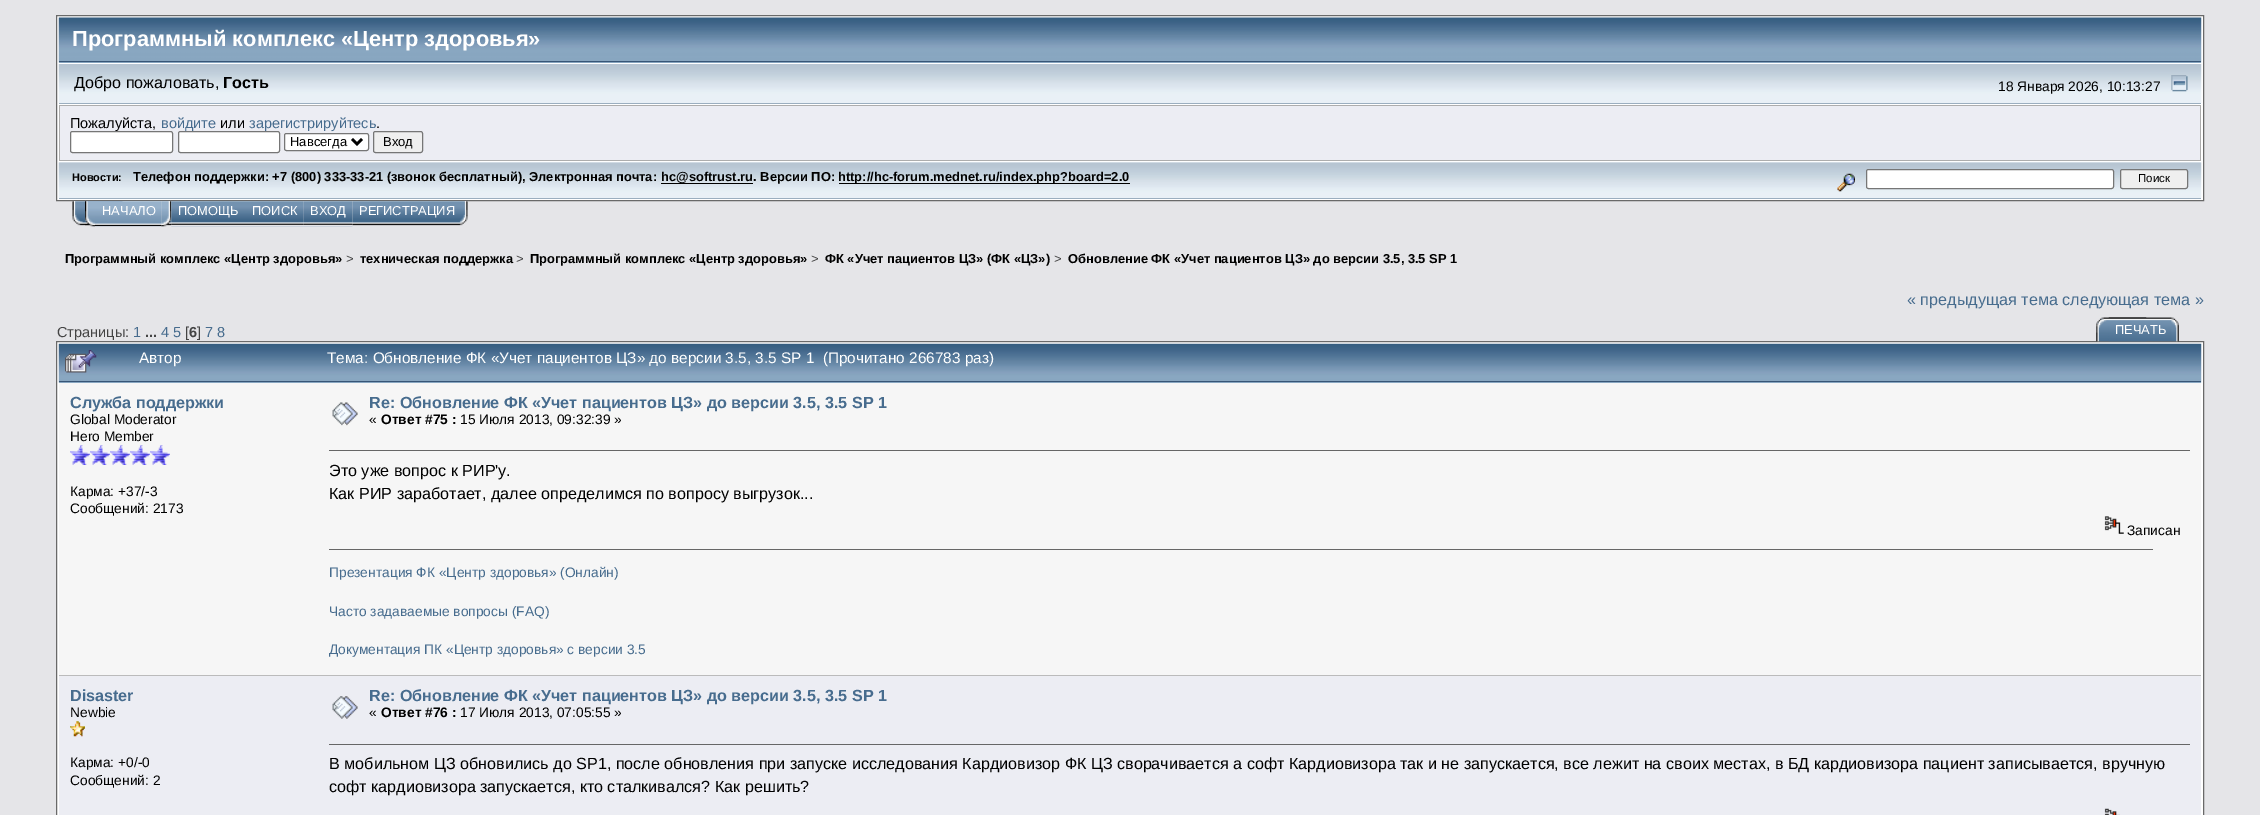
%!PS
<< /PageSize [2260 815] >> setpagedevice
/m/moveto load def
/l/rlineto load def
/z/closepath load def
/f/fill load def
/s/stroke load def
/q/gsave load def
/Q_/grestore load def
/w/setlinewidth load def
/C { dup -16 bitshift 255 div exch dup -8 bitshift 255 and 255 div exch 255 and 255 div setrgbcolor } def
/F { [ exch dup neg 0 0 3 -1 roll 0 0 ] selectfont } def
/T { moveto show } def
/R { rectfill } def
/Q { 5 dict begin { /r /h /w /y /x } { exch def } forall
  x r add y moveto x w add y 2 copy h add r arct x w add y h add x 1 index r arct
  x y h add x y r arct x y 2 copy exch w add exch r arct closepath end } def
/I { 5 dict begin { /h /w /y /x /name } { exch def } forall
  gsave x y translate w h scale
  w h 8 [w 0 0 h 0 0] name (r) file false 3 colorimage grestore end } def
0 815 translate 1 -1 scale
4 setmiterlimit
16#E5E5E8 C
0 0 2260 815 R
16#FFFFFF C
56.5 15.5 m 2147 0 l 0 185 l -2147 0 l z q f Q_
16#696969 C
s
16#88A6C0 C
59 62 2142 1 R
(1.rgb) 58 17 2144 46 I
16#375576 C
59 61 2142 1 R
/LiberationSans-Bold 21.8 F
16#FFFFFF C
(Программный комплекс «Центр здоровья») 72 46 T
(2.rgb) 58 63 2144 40 I
59 63 2142 1 R
16#9BAEBF C
59 103 2142 1 R
/LiberationSans-Regular 16.15 F
16#000000 C
(Добро пожаловать,) 74 88 T
/LiberationSans-Bold 16.15 F
(Гость) 223 88 T
/LiberationSans-Regular 13.75 F
(18 Января 2026, 10:13:27) 1998 91 T
(3.rgb) 2171 75 17 17 I
16#ADADAD C
59 105 2142 56 R
16#ECEDF3 C
60 106 2140 54 R
/LiberationSans-Regular 14.5 F
16#000000 C
(Пожалуйста,) 70 128 T
16#476C8E C
(войдите) 161 128 T
16#000000 C
(или) 220 128 T
16#476C8E C
(зарегистрируйтесь) 249 128 T
16#000000 C
(.) 376 128 T
16#FFFFFF C
70.5 131.5 102 21 2 Q q f Q_
16#767676 C
s
16#FFFFFF C
178.5 131.5 101 21 2 Q q f Q_
16#767676 C
s
16#FFFFFF C
284.5 133.5 84 17 2 Q q f Q_
16#767676 C
s
16#000000 C
2.5 w
352 139 m 5 5 l 5 -5 l s
/LiberationSans-Regular 13 F
(Навсегда) 290 146 T
16#EFEFEF C
373.5 131.5 49 21 2 Q q f Q_
16#767676 C
1 w
s
16#000000 C
(Вход) 383 146 T
16#E9F0F6 C
59 162 2142 1 R
(4.rgb) 58 162 2144 36 I
16#9BAEBF C
59 198 2142 1 R
/LiberationSans-Bold 11 F
16#000000 C
(Новости:) 72 181 T
/LiberationSans-Bold 12.9 F
(Телефон поддержки: +7 \(800\) 333-33-21 \(звонок бесплатный\), Электронная почта:) 133 181 T
661 183 92 1 R
(hc@softrust.ru. Версии ПО:) 661 181 T
839 183 291 1 R
(http://hc-forum.mednet.ru/index.php?board=2.0) 838 181 T
(5.rgb) 1837 173 18 19 I
16#FFFFFF C
1866.5 169.5 247 19 2 Q q f Q_
16#767676 C
s
16#EFEFEF C
2120.5 169.5 67 19 2 Q q f Q_
16#767676 C
s
/LiberationSans-Regular 11.5 F
16#000000 C
(Поиск) 2138 182 T
(6.rgb) 72 201 51 25 I
(7.rgb) 161 201 11 26 I
(8.rgb) 85 201 10 26 I
(9.rgb) 95 201 67 26 I
/LiberationSans-Regular 12.9 F
16#FFFFFF C
(НАЧАЛО) 102 215 T
(10.rgb) 171 201 74 26 I
(ПОМОЩЬ) 178 215 T
(11.rgb) 245 201 59 26 I
(ПОИСК) 252 215 T
(12.rgb) 303 201 50 26 I
(ВХОД) 310 215 T
(13.rgb) 352 201 116 25 I
(РЕГИСТРАЦИЯ) 359 215 T
/LiberationSans-Bold 12.9 F
16#000000 C
(Программный комплекс «Центр здоровья») 65 263 T
/LiberationSans-Regular 12.9 F
16#444444 C
(>) 346 263 T
/LiberationSans-Bold 12.9 F
16#000000 C
(техническая поддержка) 360 263 T
/LiberationSans-Regular 12.9 F
16#444444 C
(>) 516 263 T
/LiberationSans-Bold 12.9 F
16#000000 C
(Программный комплекс «Центр здоровья») 530 263 T
/LiberationSans-Regular 12.9 F
16#444444 C
(>) 811 263 T
/LiberationSans-Bold 12.9 F
16#000000 C
(ФК «Учет пациентов ЦЗ» \(ФК «ЦЗ»\)) 825 263 T
/LiberationSans-Regular 12.9 F
16#444444 C
(>) 1054 263 T
/LiberationSans-Bold 12.9 F
16#000000 C
(Обновление ФК «Учет пациентов ЦЗ» до версии 3.5, 3.5 SP 1) 1068 263 T
/LiberationSans-Regular 16.15 F
16#476C8E C
(« предыдущая тема следующая тема ») 1907 305 T
/LiberationSans-Regular 14.5 F
16#444444 C
(Страницы:) 57 337 T
16#476C8E C
(1) 133 337 T
/LiberationSans-Bold 14.5 F
16#444444 C
(...) 145 337 T
/LiberationSans-Regular 14.5 F
16#476C8E C
(4 5) 161 337 T
16#444444 C
([) 185 337 T
/LiberationSans-Bold 14.5 F
(6) 189 337 T
/LiberationSans-Regular 14.5 F
(]) 197 337 T
16#476C8E C
(7 8) 205 337 T
16#FFFFFF C
56.5 341.5 m 2147 0 l 0 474 l -2147 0 l z q f Q_
16#696969 C
s
(14.rgb) 2096 317 51 25 I
(15.rgb) 2108 317 71 25 I
/LiberationSans-Regular 12.9 F
16#FFFFFF C
(ПЕЧАТЬ) 2115 334 T
16#88A6C0 C
59 382 2142 1 R
(16.rgb) 58 343 2144 40 I
16#375576 C
59 381 2142 1 R
(17.rgb) 65 350 32 23 I
/LiberationSans-Regular 15.35 F
16#FFFFFF C
(Автор) 139 363 T
(Тема: Обновление ФК «Учет пациентов ЦЗ» до версии 3.5, 3.5 SP 1  \(Прочитано 266783 раз\)) 327 363 T
16#F6F6F6 C
59 383 2142 292 R
/LiberationSans-Bold 16.15 F
16#476C8E C
(Служба поддержки) 70 408 T
/LiberationSans-Regular 13.75 F
16#000000 C
(Global Moderator) 70 424 T
(Hero Member) 70 441 T
(18.rgb) 70 445 20 20 I
(18.rgb) 90 445 20 20 I
(18.rgb) 110 445 20 20 I
(18.rgb) 130 445 20 20 I
(18.rgb) 150 445 20 20 I
(Карма: +37/-3) 70 496 T
(Сообщений: 2173) 70 513 T
(19.rgb) 332 402 26 24 I
/LiberationSans-Bold 16.15 F
16#476C8E C
(Re: Обновление ФК «Учет пациентов ЦЗ» до версии 3.5, 3.5 SP 1) 369 408 T
/LiberationSans-Regular 13.75 F
16#000000 C
(«) 369 424 T
/LiberationSans-Bold 13.75 F
(Ответ #75 :) 381 424 T
/LiberationSans-Regular 13.75 F
(15 Июля 2013, 09:32:39 ») 460 424 T
16#666666 C
329 450 1861 1 R
/LiberationSans-Regular 16.15 F
16#000000 C
(Это уже вопрос к РИР'у.) 329 476 T
(Как РИР заработает, далее определимся по вопросу выгрузок...) 329 499 T
(20.rgb) 2104 516 20 18 I
/LiberationSans-Regular 13.75 F
(Записан) 2127 535 T
16#666666 C
329 549 1824 1 R
16#476C8E C
(Презентация ФК «Центр здоровья» \(Онлайн\)) 329 577 T
(Часто задаваемые вопросы \(FAQ\)) 329 616 T
q
329 550 1824 114 rectclip
(Документация ПК «Центр здоровья» с версии 3.5) 329 654 T
Q_
16#ECEDF3 C
59 676 2142 139 R
16#BBBBBB C
59 675 2142 1 R
/LiberationSans-Bold 16.15 F
16#476C8E C
(Disaster) 70 701 T
/LiberationSans-Regular 13.75 F
16#000000 C
(Newbie) 70 717 T
(21.rgb) 70 721 15 16 I
(Карма: +0/-0) 70 767 T
(Сообщений: 2) 70 785 T
(22.rgb) 332 696 26 23 I
/LiberationSans-Bold 16.15 F
16#476C8E C
(Re: Обновление ФК «Учет пациентов ЦЗ» до версии 3.5, 3.5 SP 1) 369 701 T
/LiberationSans-Regular 13.75 F
16#000000 C
(«) 369 717 T
/LiberationSans-Bold 13.75 F
(Ответ #76 :) 381 717 T
/LiberationSans-Regular 13.75 F
(17 Июля 2013, 07:05:55 ») 460 717 T
16#666666 C
329 744 1861 1 R
/LiberationSans-Regular 16.15 F
16#000000 C
(В мобильном ЦЗ обновились до SP1, после обновления при запуске исследования Кардиовизор ФК ЦЗ сворачивается а софт Кардиовизора так и не запускается, все лежит на своих местах, в БД кардиовизора пациент записывается, вручную) 329 769 T
(софт кардиовизора запускается, кто сталкивался? Как решить?) 329 792 T
(23.rgb) 2104 808 16 7 I
showpage
